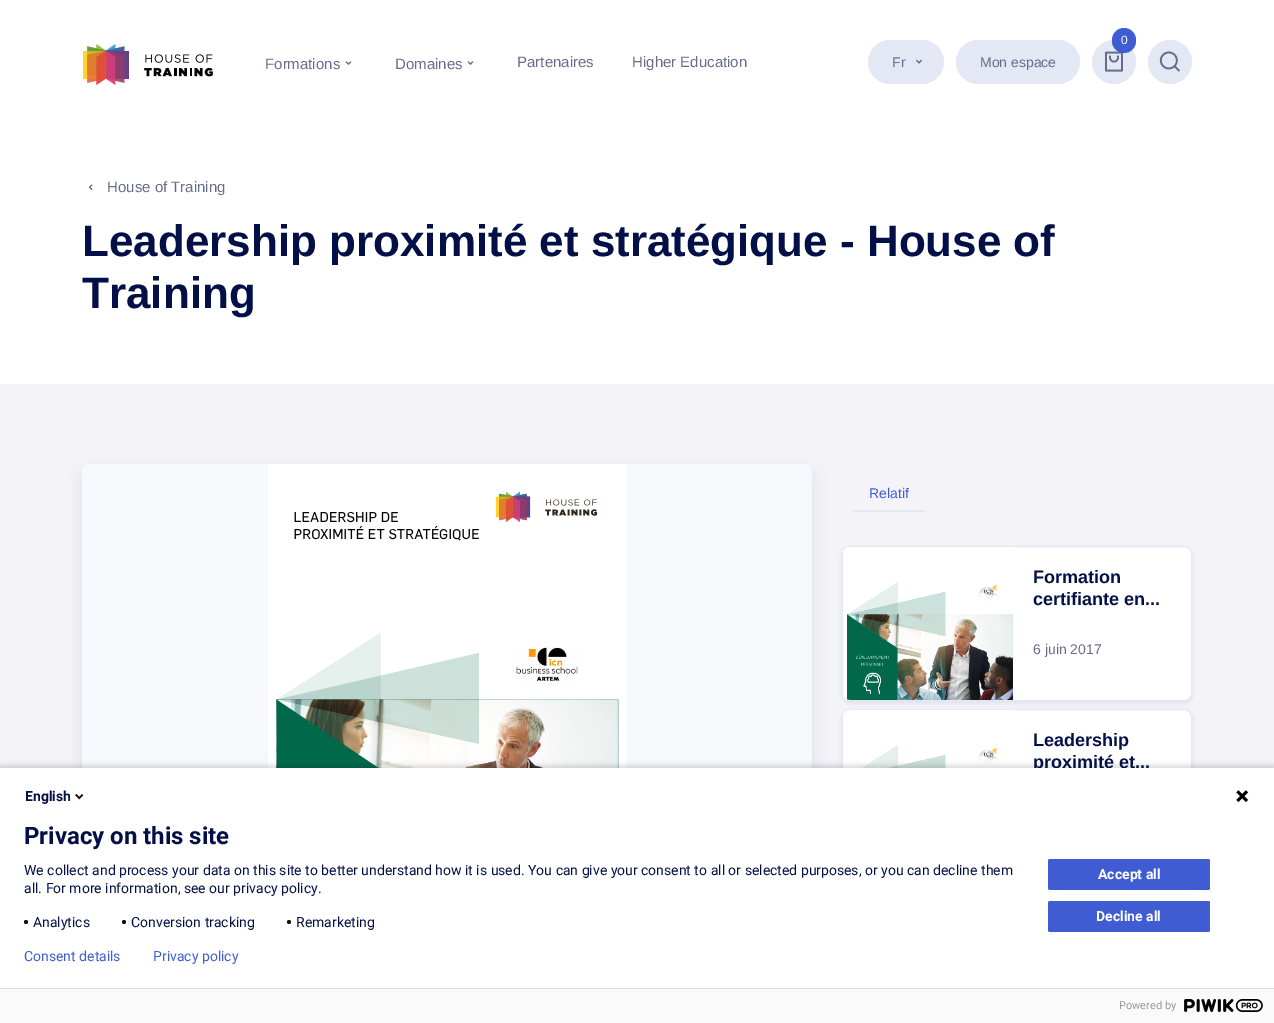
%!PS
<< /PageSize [1274 1023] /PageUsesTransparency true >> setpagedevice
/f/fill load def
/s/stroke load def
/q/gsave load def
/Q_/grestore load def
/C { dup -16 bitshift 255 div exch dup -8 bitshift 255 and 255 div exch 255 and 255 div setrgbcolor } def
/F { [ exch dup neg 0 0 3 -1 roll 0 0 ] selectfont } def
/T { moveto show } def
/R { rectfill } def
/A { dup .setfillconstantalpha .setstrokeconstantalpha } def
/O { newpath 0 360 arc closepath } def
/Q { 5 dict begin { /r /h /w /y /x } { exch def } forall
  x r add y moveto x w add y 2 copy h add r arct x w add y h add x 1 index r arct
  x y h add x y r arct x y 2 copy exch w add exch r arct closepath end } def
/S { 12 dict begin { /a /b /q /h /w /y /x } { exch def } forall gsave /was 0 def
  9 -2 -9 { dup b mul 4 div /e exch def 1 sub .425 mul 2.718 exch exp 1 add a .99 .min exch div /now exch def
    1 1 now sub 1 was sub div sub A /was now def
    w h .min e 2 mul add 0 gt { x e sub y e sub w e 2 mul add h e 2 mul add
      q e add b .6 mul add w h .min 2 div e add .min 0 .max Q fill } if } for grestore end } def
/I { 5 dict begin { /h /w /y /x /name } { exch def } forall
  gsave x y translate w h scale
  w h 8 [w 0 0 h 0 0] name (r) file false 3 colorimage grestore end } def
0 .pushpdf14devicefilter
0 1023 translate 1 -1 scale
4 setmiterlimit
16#F3F3F8 C
0 0 1274 1023 R
16#FFFFFF C
0 0 1274 384 R
(1.rgb) 83 44 130 41 I
/LiberationSans-Regular 15 F
16#666D8C C
(Formations) 265 69 T
(2.rgb) 345 61 7 4 I
(Domaines) 395 69 T
(2.rgb) 467 61 7 4 I
(Partenaires) 517 67 T
(Higher Education) 632 67 T
16#E4E8F5 C
868 40 76 44 22 Q f
/LiberationSans-Regular 14 F
16#666D8C C
(Fr) 892 67 T
(3.rgb) 916 59 6 5 I
16#E4E8F5 C
956 40 124 44 22 Q f
16#666D8C C
(Mon espace) 980 67 T
16#E4E8F5 C
1114 62 22 O f
(4.rgb) 1105 51 18 21 I
16#3F5CD2 C
1112 28 24 25 12 Q f
/LiberationSans-Regular 12 F
16#FFFFFF C
(0) 1121 44 T
16#E4E8F5 C
1170 62 22 O f
(5.rgb) 1159 51 21 21 I
(6.rgb) 88 184 5 7 I
/LiberationSans-Regular 15 F
16#666D8C C
(House of Training) 107 192 T
/LiberationSans-Bold 44 F
16#031047 C
(Leadership proximité et stratégique - House of) 82 256 T
(Training) 82 308 T
82 472 730 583 8 8 .08 S
(7.rgb) 82 464 730 304 I
/LiberationSans-Regular 14 F
16#3F5CD2 C
(Relatif) 869 498 T
16#E4E8F5 C
853 510 72 2 R
16#031047 C
842 548 350 155 8 2 .08 S
16#FFFFFF C
842.5 546.5 349 154 7.5 Q q f Q_
16#E4E8F5 C
s
(8.rgb) 843 547 170 153 I
/LiberationSans-Bold 18 F
16#031047 C
(Formation) 1033 583 T
(certifiante en...) 1033 605 T
/LiberationSans-Regular 14 F
16#666D8C C
(6 juin 2017) 1033 654 T
16#031047 C
842 711 350 155 8 2 .08 S
16#FFFFFF C
842.5 709.5 349 154 7.5 Q q f Q_
16#E4E8F5 C
s
(9.rgb) 843 710 170 58 I
/LiberationSans-Bold 18 F
16#031047 C
(Leadership) 1033 746 T
(proximité et...) 1033 768 T
16#000000 C
-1 765 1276 257 0 2.5 .14 S
16#FFFFFF C
0 768 1274 220 R
/Roboto-Bold 14 F
16#031047 C
(English) 25 801 T
(10.rgb) 75 793 9 7 I
(11.rgb) 1236 790 13 13 I
/Roboto-Bold 24 F
(Privacy on this site) 24 844 T
/Roboto-Regular 14 F
(We collect and process your data on this site to better understand how it is used. You can give your consent to all or selected purposes, or you can decline them) 24 875 T
(all. For more information, see our privacy policy.) 24 893 T
16#131313 C
26 922 2 O f
16#031047 C
(Analytics) 33 927 T
16#131313 C
124 922 2 O f
16#031047 C
(Conversion tracking) 131 927 T
16#131313 C
289 922 2 O f
16#031047 C
(Remarketing) 296 927 T
16#3F5CD2 C
1048 859 162 31 2 Q f
/Roboto-Bold 14 F
16#FFFFFF C
(Accept all) 1098 879 T
16#3F5CD2 C
1048 901 162 31 2 Q f
16#FFFFFF C
(Decline all) 1096 921 T
/Roboto-Regular 14 F
16#3F5CD2 C
(Consent details) 24 961 T
(Privacy policy) 153 961 T
16#FAFAFA C
0 989 1274 34 R
16#DDDDDD C
0 988 1274 1 R
/Roboto-Regular 11 F
16#999999 C
(Powered by) 1119 1009 T
(12.rgb) 1184 999 79 13 I
.poppdf14devicefilter showpage
